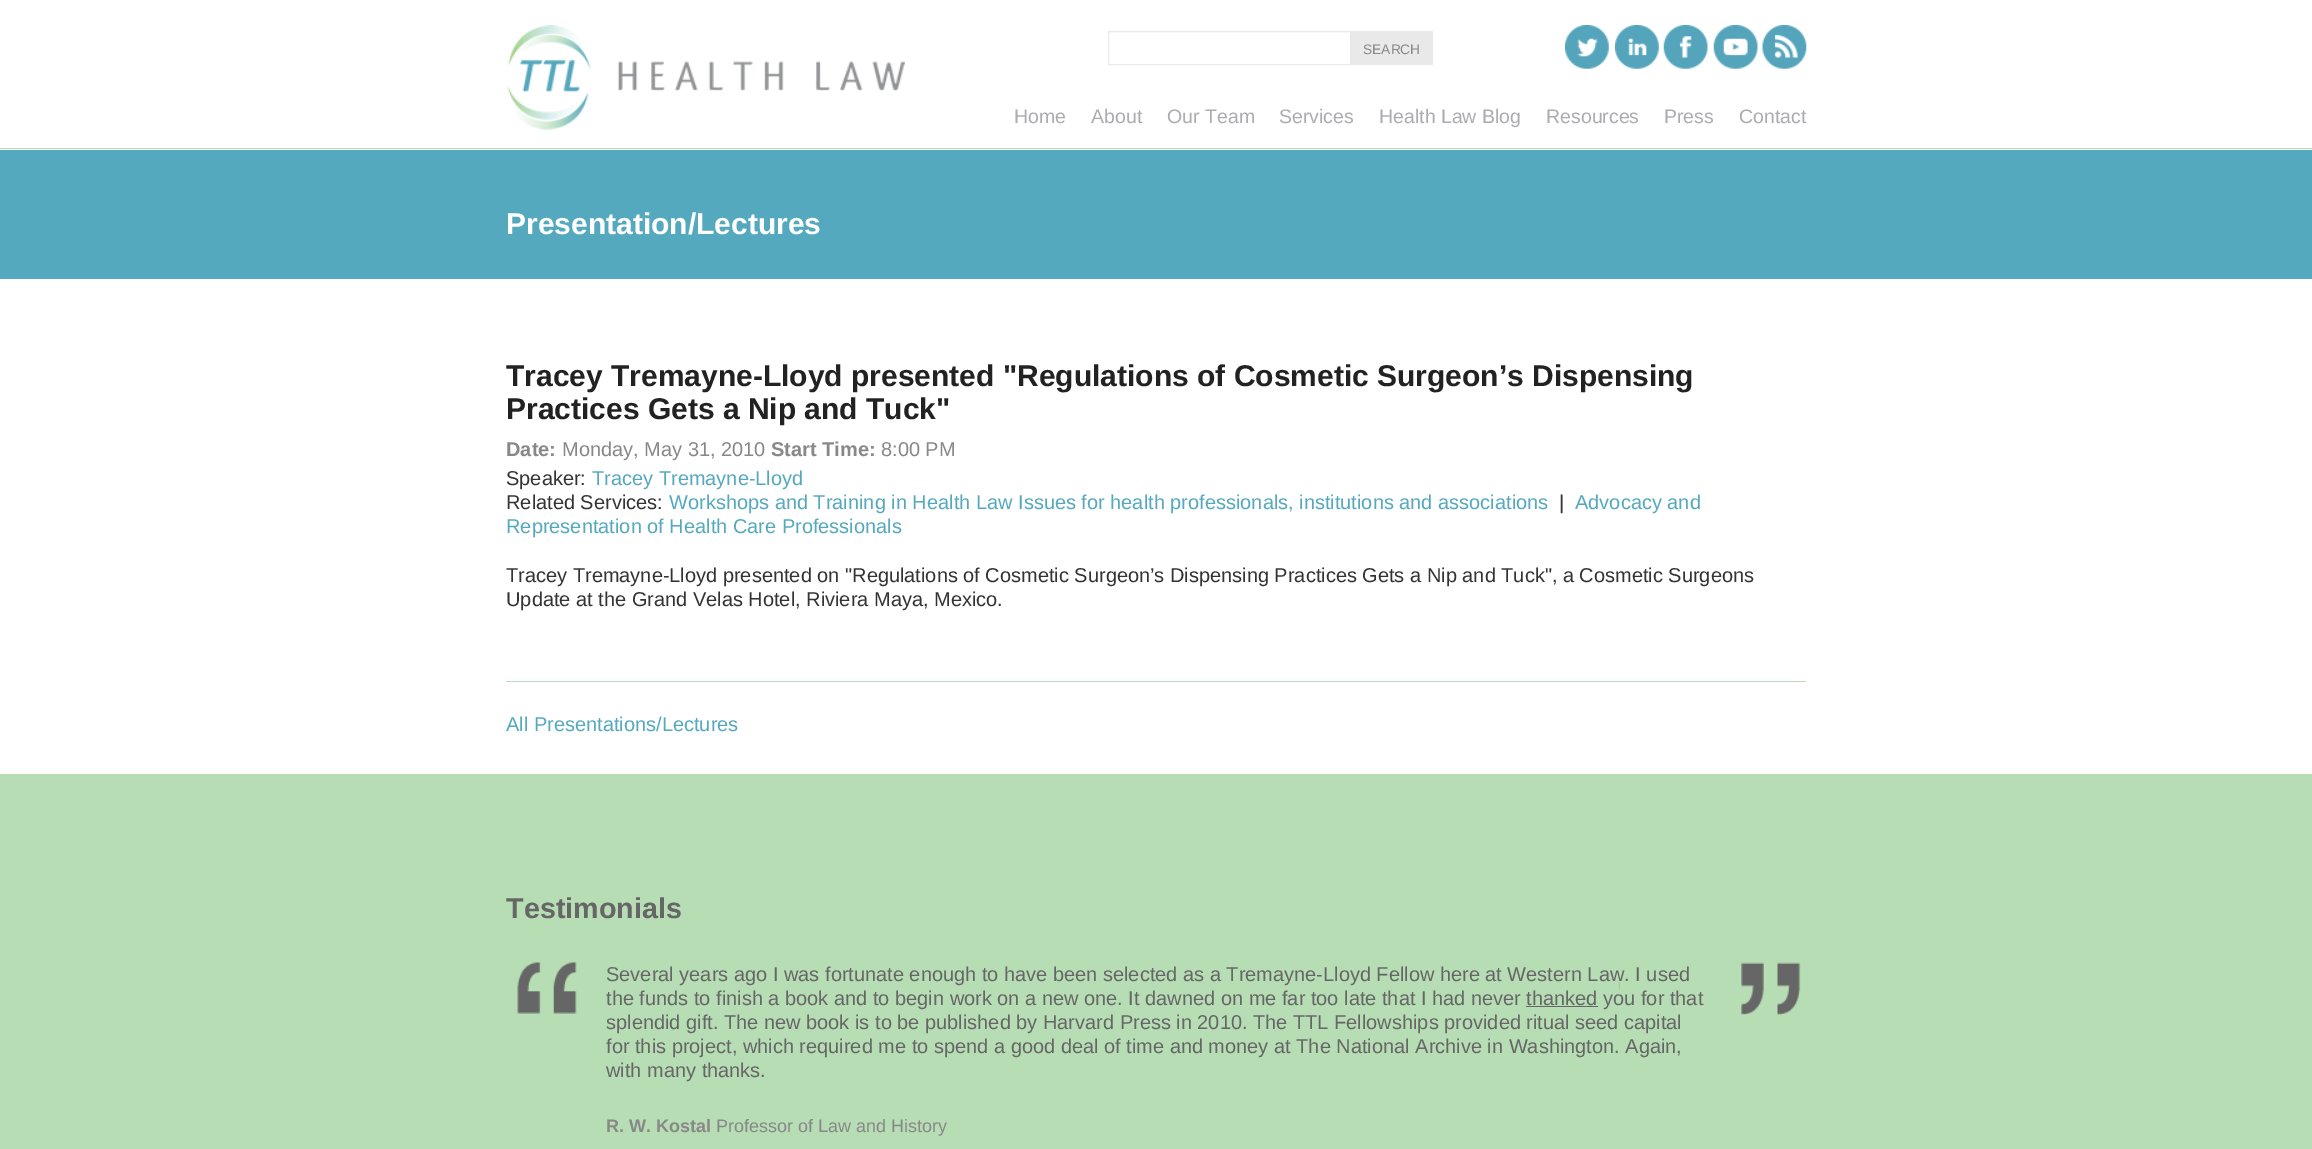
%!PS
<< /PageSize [2312 1149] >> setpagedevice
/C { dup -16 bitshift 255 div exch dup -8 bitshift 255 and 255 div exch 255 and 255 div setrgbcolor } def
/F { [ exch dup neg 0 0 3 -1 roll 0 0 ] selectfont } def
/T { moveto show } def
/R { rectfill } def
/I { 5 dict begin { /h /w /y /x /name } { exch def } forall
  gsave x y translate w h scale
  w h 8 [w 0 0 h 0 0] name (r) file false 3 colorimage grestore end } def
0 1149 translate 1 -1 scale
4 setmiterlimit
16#FFFFFF C
0 0 2312 1149 R
16#B7DDB4 C
0 148 2312 1 R
(1.rgb) 506 25 399 105 I
16#E9E9E9 C
1108.5 31.5 242 33 rectstroke
1351 31 82 34 R
/LiberationSans-Regular 13.75 F
16#888888 C
(SEARCH) 1363 54 T
(2.rgb) 1565 25 44 44 I
(3.rgb) 1615 25 44 44 I
(4.rgb) 1663 25 45 44 I
(5.rgb) 1713 25 45 44 I
(6.rgb) 1762 25 45 44 I
/LiberationSans-Regular 19.5 F
16#ACACB0 C
(Home) 1014 123 T
(About) 1091 123 T
(Our Team) 1167 123 T
(Services) 1279 123 T
(Health Law Blog) 1379 123 T
(Resources) 1546 123 T
(Press) 1664 123 T
(Contact) 1739 123 T
16#54A9BE C
0 150 2312 129 R
/LiberationSans-Bold 30 F
16#FFFFFF C
(Presentation/Lectures) 506 234 T
16#B7DDB4 C
506 681 1300 1 R
16#222222 C
(Tracey Tremayne-Lloyd presented "Regulations of Cosmetic Surgeon’s Dispensing) 506 386 T
(Practices Gets a Nip and Tuck") 506 419 T
/LiberationSans-Bold 20 F
16#888888 C
(Date:) 506 456 T
/LiberationSans-Regular 20 F
(Monday, May 31, 2010) 562 456 T
/LiberationSans-Bold 20 F
(Start Time:) 771 456 T
/LiberationSans-Regular 20 F
(8:00 PM) 881 456 T
16#333333 C
(Speaker:) 506 485 T
16#54A9BE C
(Tracey Tremayne-Lloyd) 592 485 T
16#333333 C
(Related Services:) 506 509 T
16#54A9BE C
(Workshops and Training in Health Law Issues for health professionals, institutions and associations) 669 509 T
16#333333 C
(|) 1559 509 T
16#54A9BE C
(Advocacy and) 1575 509 T
(Representation of Health Care Professionals) 506 533 T
16#333333 C
(Tracey Tremayne-Lloyd presented on "Regulations of Cosmetic Surgeon’s Dispensing Practices Gets a Nip and Tuck", a Cosmetic Surgeons) 506 582 T
(Update at the Grand Velas Hotel, Riviera Maya, Mexico.) 506 606 T
16#54A9BE C
(All Presentations/Lectures) 506 731 T
16#B7DDB4 C
0 774 2312 375 R
/LiberationSans-Bold 28.75 F
16#666666 C
(Testimonials) 506 918 T
(7.rgb) 517 962 1284 53 I
/LiberationSans-Regular 20 F
(Several years ago I was fortunate enough to have been selected as a Tremayne-Lloyd Fellow here at Western Law. I used) 606 981 T
(the funds to finish a book and to begin work on a new one. It dawned on me far too late that I had never thanked you for that) 606 1005 T
1526 1006 72 1 R
(splendid gift. The new book is to be published by Harvard Press in 2010. The TTL Fellowships provided ritual seed capital) 606 1029 T
(for this project, which required me to spend a good deal of time and money at The National Archive in Washington. Again,) 606 1053 T
(with many thanks.) 606 1077 T
/LiberationSans-Bold 18 F
16#888888 C
(R. W. Kostal) 606 1132 T
/LiberationSans-Regular 18 F
(Professor of Law and History) 716 1132 T
showpage
